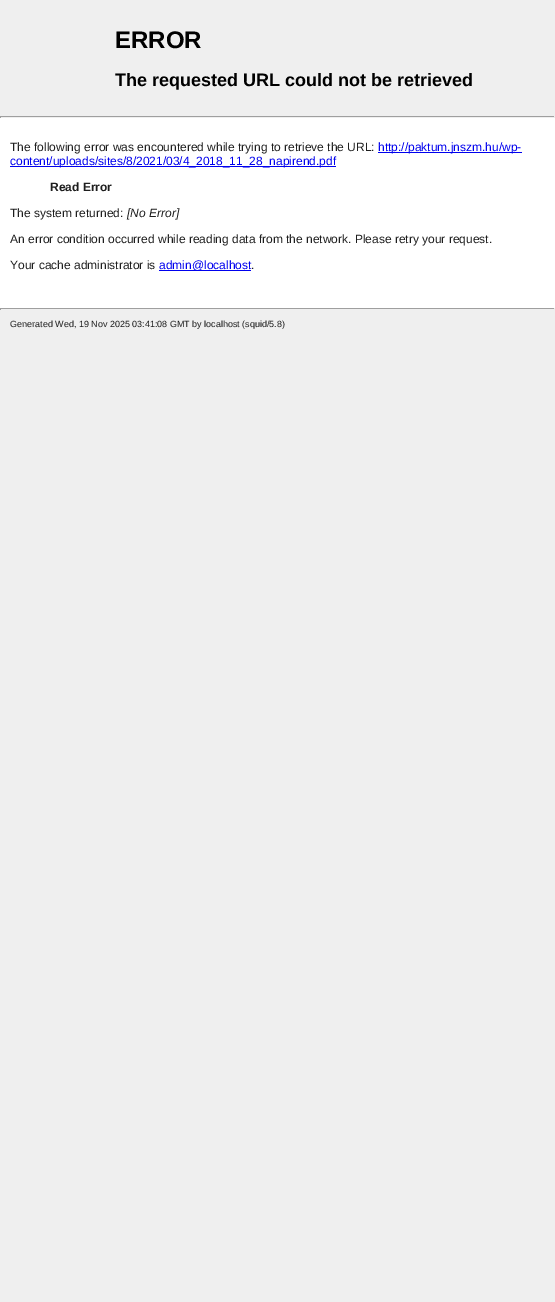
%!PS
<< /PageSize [555 1302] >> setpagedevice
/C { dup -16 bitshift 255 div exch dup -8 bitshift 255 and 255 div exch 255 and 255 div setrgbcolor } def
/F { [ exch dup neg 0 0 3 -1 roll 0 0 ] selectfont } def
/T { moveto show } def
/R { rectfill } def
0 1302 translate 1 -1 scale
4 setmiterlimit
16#EFEFEF C
0 0 555 1302 R
/LiberationSans-Bold 24 F
16#000000 C
(ERROR) 115 48 T
/LiberationSans-Bold 18 F
(The requested URL could not be retrieved) 115 86 T
16#9F9F9F C
0 116 555 1 R
16#EEEEEE C
554 116 1 2 R
16#9F9F9F C
0 116 1 2 R
16#FFFFFF C
0 118 555 190 R
/LiberationSans-Regular 12 F
16#1E1E1E C
(The following error was encountered while trying to retrieve the URL:) 10 151 T
16#0000EE C
378 152 144 1 R
(http://paktum.jnszm.hu/wp-) 378 151 T
10 166 326 1 R
(content/uploads/sites/8/2021/03/4_2018_11_28_napirend.pdf) 10 165 T
/LiberationSans-Bold 12 F
16#1E1E1E C
(Read Error) 50 191 T
/LiberationSans-Regular 12 F
(The system returned:) 10 217 T
/LiberationSans-Italic 12 F
([No Error]) 127 217 T
/LiberationSans-Regular 12 F
(An error condition occurred while reading data from the network. Please retry your request.) 10 243 T
(Your cache administrator is) 10 269 T
16#0000EE C
159 270 92 1 R
(admin@localhost) 159 269 T
16#1E1E1E C
(.) 251 269 T
16#9F9F9F C
0 308 555 1 R
16#EEEEEE C
554 308 1 2 R
16#9F9F9F C
0 308 1 2 R
/LiberationSans-Regular 9 F
16#1E1E1E C
(Generated Wed, 19 Nov 2025 03:41:08 GMT by localhost \(squid/5.8\)) 10 327 T
showpage
